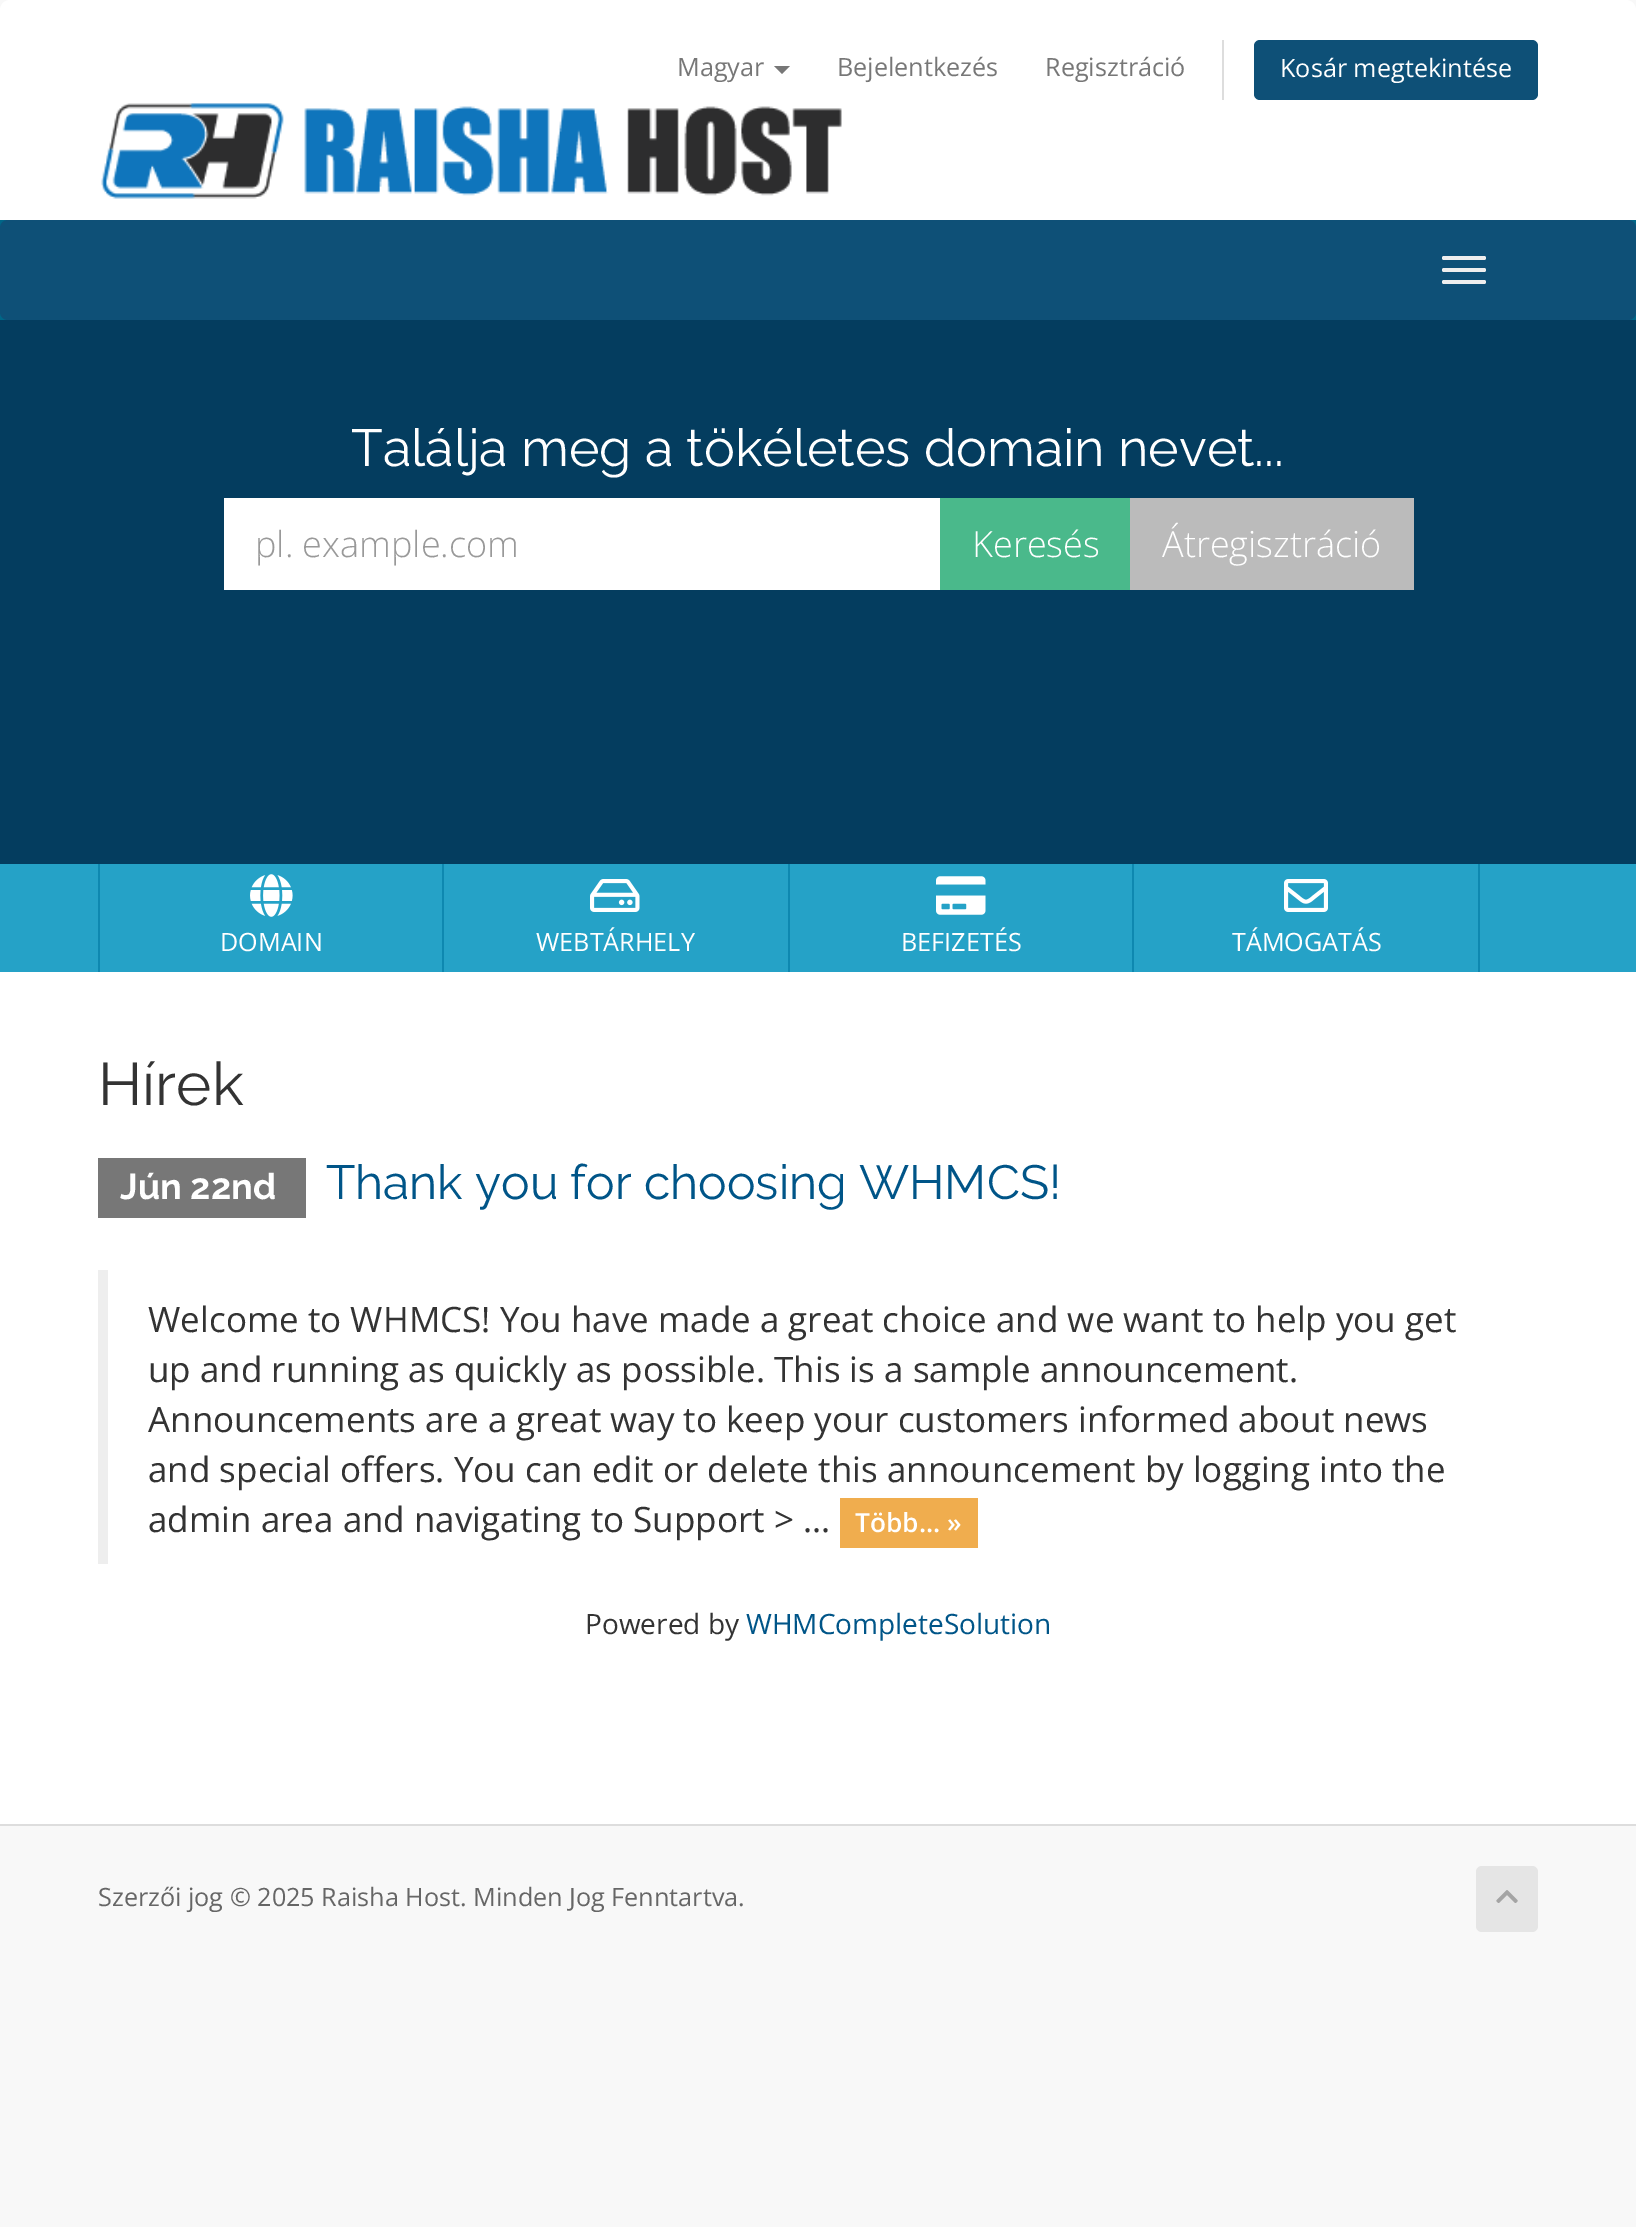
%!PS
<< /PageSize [1636 2227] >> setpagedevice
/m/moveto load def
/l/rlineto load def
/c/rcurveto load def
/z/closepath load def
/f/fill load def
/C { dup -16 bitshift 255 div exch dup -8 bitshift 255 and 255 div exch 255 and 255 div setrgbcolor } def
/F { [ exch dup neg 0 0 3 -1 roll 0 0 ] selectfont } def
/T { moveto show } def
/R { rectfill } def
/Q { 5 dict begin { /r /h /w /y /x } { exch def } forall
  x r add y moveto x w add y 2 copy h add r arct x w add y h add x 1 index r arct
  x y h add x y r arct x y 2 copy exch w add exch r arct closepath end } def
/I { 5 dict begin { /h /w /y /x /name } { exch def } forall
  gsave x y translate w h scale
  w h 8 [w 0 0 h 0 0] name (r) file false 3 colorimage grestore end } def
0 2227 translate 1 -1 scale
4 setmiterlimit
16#F8F8F8 C
0 0 1636 2227 R
16#FFFFFF C
10 0 m 1616 0 l 5.5 0 10 4.5 10 10 c 0 210 l -1636 0 l 0 -210 l 0 -5.5 4.5 -10 10 -10 c z f
/OpenSans-Regular 25.2 F
16#777777 C
(Magyar) 677 76 T
774 66 m 16 0 l -8 8 l z f
(Bejelentkezés) 837 76 T
(Regisztráció) 1045 76 T
16#DDDDDD C
1222 40 2 60 R
16#0E5077 C
1254 40 284 60 6 Q f
16#FFFFFF C
(Kosár megtekintése) 1280 77 T
(1.rgb) 101 103 741 96 I
16#006687 C
0 220 1636 100 R
16#0E5077 C
0 220 1636 100 8 Q f
16#EEEEEE C
1442 256 44 4 2 Q f
1442 268 44 4 2 Q f
1442 280 44 4 2 Q f
16#043D5F C
0 320 1636 544 R
/Raleway-Regular 52 F
16#FFFFFF C
(Találja meg a tökéletes domain nevet...) 351 466 T
224 498 716 92 R
/OpenSans-Light 36 F
16#999999 C
(pl. example.com) 255 557 T
16#4AB98B C
940 498 190 92 R
16#FFFFFF C
(Keresés) 972 557 T
16#BBBBBB C
1130 498 284 92 R
16#FFFFFF C
(Átregisztráció) 1162 557 T
16#25A2C7 C
0 864 1636 108 R
16#0E88B0 C
442 864 2 108 R
98 864 2 108 R
(2.rgb) 250 874 43 43 I
/OpenSans-Regular 25.2 F
16#FFFFFF C
(DOMAIN) 220 951 T
16#0E88B0 C
788 864 2 108 R
(3.rgb) 590 879 50 33 I
16#FFFFFF C
(WEBTÁRHELY) 536 951 T
16#0E88B0 C
1132 864 2 108 R
(4.rgb) 936 876 50 39 I
16#FFFFFF C
(BEFIZETÉS) 901 951 T
16#0E88B0 C
1478 864 2 108 R
(5.rgb) 1284 879 44 33 I
16#FFFFFF C
(TÁMOGATÁS) 1232 951 T
0 972 1636 852 R
/Raleway-Regular 60 F
16#333333 C
(Hírek) 98 1105 T
16#777777 C
98 1158 208 60 R
/Raleway-Bold 36 F
16#FFFFFF C
(Jún 22nd) 120 1199 T
/Raleway-Regular 48 F
16#005588 C
(Thank you for choosing WHMCS!) 326 1199 T
16#EEEEEE C
98 1270 10 294 R
/OpenSans-Regular 35 F
16#333333 C
(Welcome to WHMCS! You have made a great choice and we want to help you get) 148 1332 T
(up and running as quickly as possible. This is a sample announcement.) 148 1382 T
(Announcements are a great way to keep your customers informed about news) 148 1432 T
(and special offers. You can edit or delete this announcement by logging into the) 148 1482 T
(admin area and navigating to Support > ...) 148 1532 T
16#F0AD4E C
840 1498 138 50 R
/OpenSans-SemiBold 26.25 F
16#FFFFFF C
(Több... ») 855 1532 T
/OpenSans-Regular 28 F
16#333333 C
(Powered by) 585 1634 T
16#005588 C
(WHMCompleteSolution) 746 1634 T
16#DDDDDD C
0 1824 1636 2 R
/OpenSans-Regular 25.2 F
16#666666 C
(Szerzői jog © 2025 Raisha Host. Minden Jog Fenntartva.) 98 1906 T
16#E5E5E5 C
1476 1866 62 66 6 Q f
(6.rgb) 1496 1890 22 13 I
showpage
